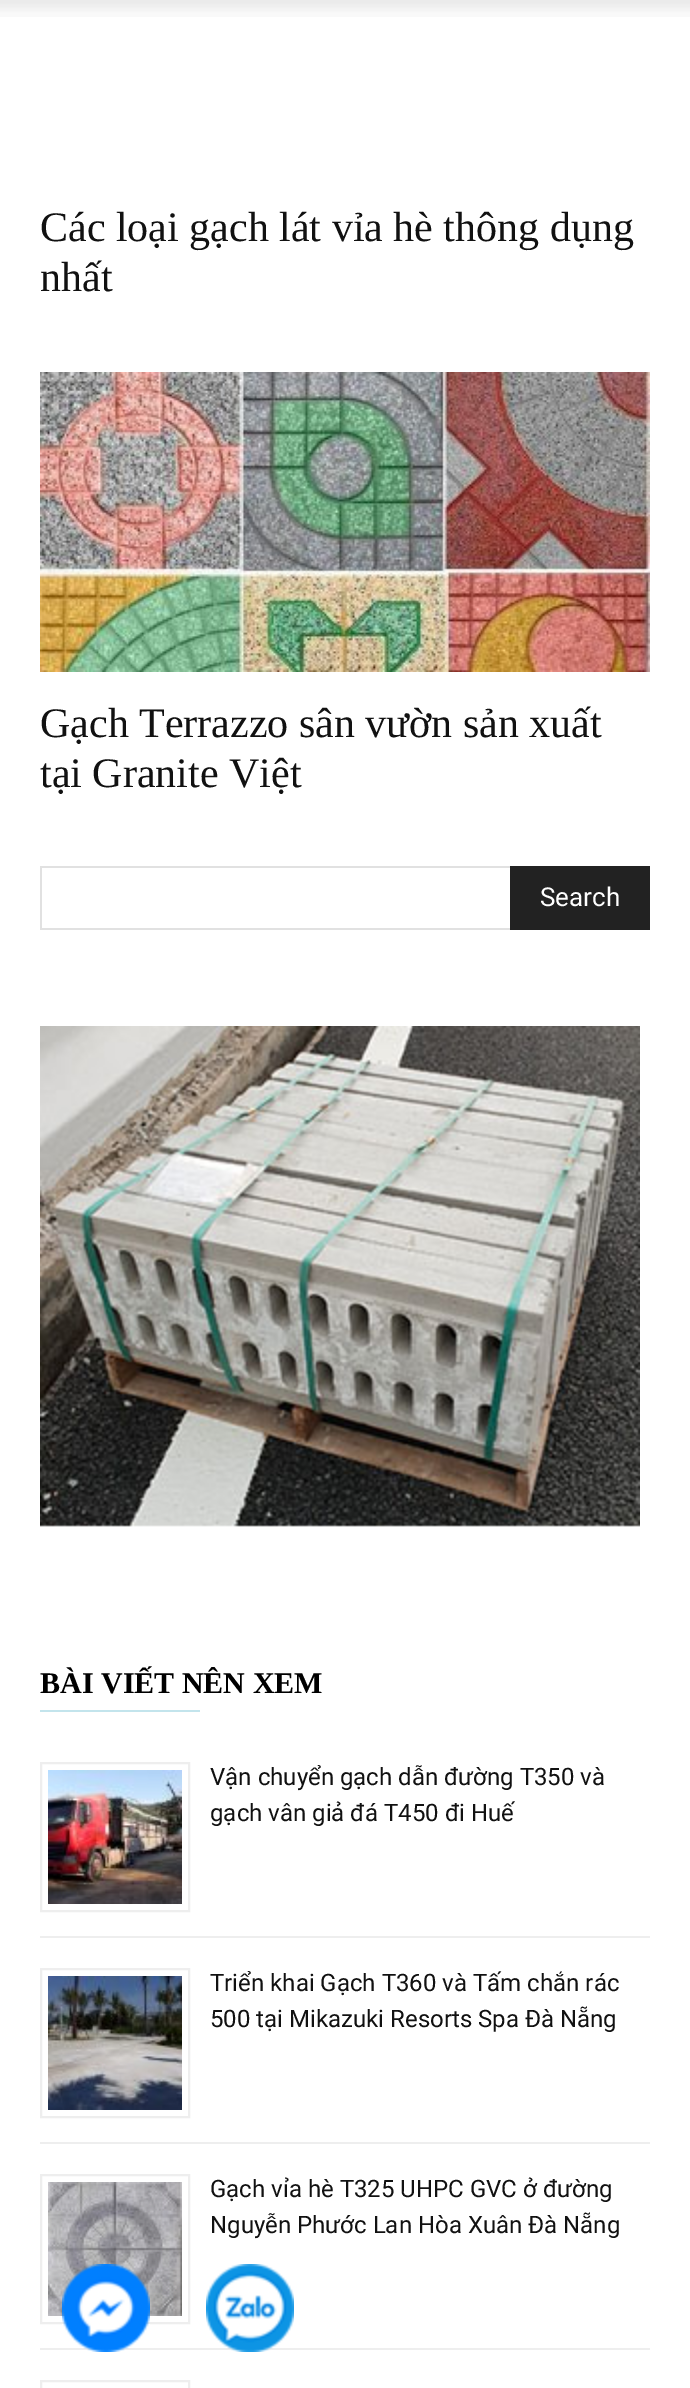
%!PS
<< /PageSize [690 2388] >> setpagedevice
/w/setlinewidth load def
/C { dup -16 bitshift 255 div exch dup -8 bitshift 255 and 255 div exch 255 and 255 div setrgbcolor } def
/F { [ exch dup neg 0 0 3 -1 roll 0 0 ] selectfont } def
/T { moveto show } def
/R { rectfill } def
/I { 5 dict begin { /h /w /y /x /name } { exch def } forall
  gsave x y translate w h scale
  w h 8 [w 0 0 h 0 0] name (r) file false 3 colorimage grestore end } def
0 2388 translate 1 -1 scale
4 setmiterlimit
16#FFFFFF C
0 0 690 2388 R
(1.rgb) 0 0 690 17 I
/LiberationSerif-Regular 42 F
16#111111 C
(Các loại gạch lát vỉa hè thông dụng) 40 241 T
(nhất) 40 291 T
(2.rgb) 40 372 610 300 I
(Gạch Terrazzo sân vườn sản xuất) 40 737 T
(tại Granite Việt) 40 787 T
16#E1E1E1 C
40 866 470 2 R
40 928 470 2 R
40 866 2 64 R
16#222222 C
510 866 140 64 R
/Roboto-Regular 26 F
16#FFFFFF C
(Search) 540 906 T
(3.rgb) 40 1026 600 501 I
/LiberationSerif-Bold 30 F
16#000000 C
(BÀI VIẾT NÊN XEM) 40 1693 T
16#C3E4EC C
40 1710 160 2 R
16#EEEEEE C
40 1936 610 2 R
2 w
41 1763 148 148 rectstroke
(4.rgb) 48 1770 134 134 I
/Roboto-Regular 24 F
16#111111 C
(Vận chuyển gạch dẫn đường T350 và) 210 1785 T
(gạch vân giả đá T450 đi Huế) 210 1821 T
16#EEEEEE C
40 2142 610 2 R
41 1969 148 148 rectstroke
(5.rgb) 48 1976 134 134 I
16#111111 C
(Triển khai Gạch T360 và Tấm chắn rác) 210 1991 T
(500 tại Mikazuki Resorts Spa Đà Nẵng) 210 2027 T
16#EEEEEE C
40 2348 610 2 R
41 2175 148 148 rectstroke
(6.rgb) 48 2182 134 134 I
16#111111 C
(Gạch vỉa hè T325 UHPC GVC ở đường) 210 2197 T
(Nguyễn Phước Lan Hòa Xuân Đà Nẵng) 210 2233 T
16#EEEEEE C
41 2381 148 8 rectstroke
(7.rgb) 62 2264 88 88 I
(8.rgb) 206 2264 88 88 I
showpage
